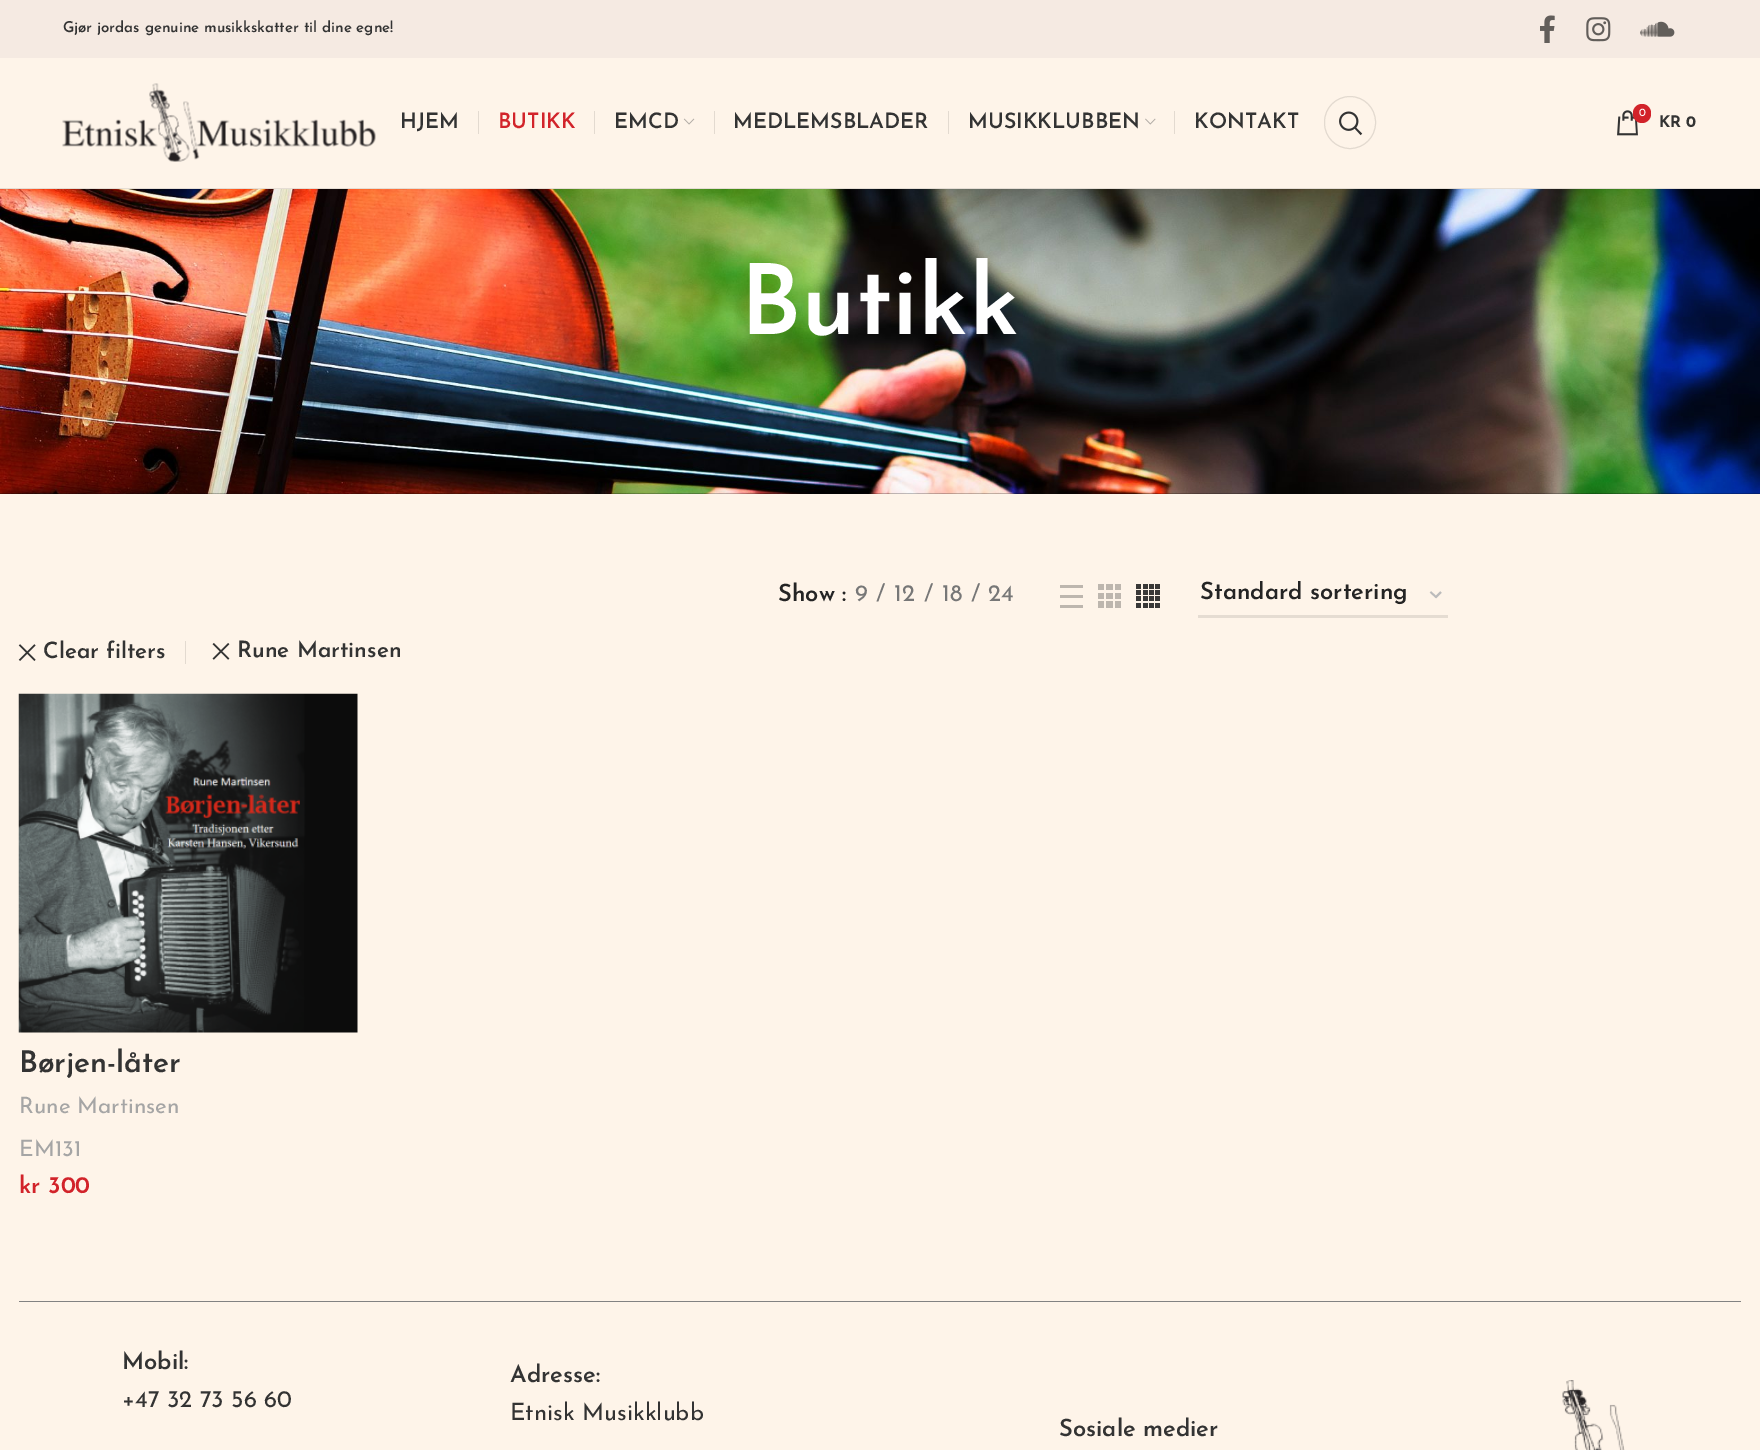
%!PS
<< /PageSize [1760 1450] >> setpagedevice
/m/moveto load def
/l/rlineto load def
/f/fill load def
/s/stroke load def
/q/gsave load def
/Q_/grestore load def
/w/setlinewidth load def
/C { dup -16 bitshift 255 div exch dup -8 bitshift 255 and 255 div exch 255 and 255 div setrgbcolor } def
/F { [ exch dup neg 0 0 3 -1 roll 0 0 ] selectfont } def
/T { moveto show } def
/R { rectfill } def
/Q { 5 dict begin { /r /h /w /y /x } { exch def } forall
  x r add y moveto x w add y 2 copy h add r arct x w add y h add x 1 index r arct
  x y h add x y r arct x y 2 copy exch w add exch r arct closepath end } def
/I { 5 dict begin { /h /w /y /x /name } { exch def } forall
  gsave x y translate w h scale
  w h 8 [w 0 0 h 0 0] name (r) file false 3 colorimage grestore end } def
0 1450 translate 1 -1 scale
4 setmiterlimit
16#FEF4E9 C
0 0 1760 1450 R
16#F5EAE2 C
0 0 1760 58 R
/JosefinSans-SemiBold 15 F
16#333333 C
(Gjør jordas genuine musikkskatter til dine egne!) 63 32 T
(1.rgb) 1540 15 15 28 I
(2.rgb) 1586 17 25 25 I
(3.rgb) 1640 21 35 16 I
16#E5DDD4 C
0 188 1760 1 R
(4.rgb) 62 83 314 79 I
/JosefinSans-SemiBold 21.25 F
16#333333 C
(HJEM) 400 128 T
16#E3DAD0 C
478 111 1 23 R
16#D2232A C
(BUTIKK) 498 128 T
16#E3DAD0 C
594 111 1 23 R
16#333333 C
(EMCD) 614 128 T
(5.rgb) 683 118 12 7 I
16#E3DAD0 C
714 111 1 23 R
16#333333 C
(MEDLEMSBLADER) 733 128 T
16#E3DAD0 C
948 111 1 23 R
16#333333 C
(MUSIKKLUBBEN) 968 128 T
(6.rgb) 1145 118 11 7 I
16#E3DAD0 C
1174 111 1 23 R
16#333333 C
(KONTAKT) 1194 128 T
16#E3DAD0 C
1324.5 96.5 51 52 25.5 Q s
(7.rgb) 1339 111 24 25 I
(8.rgb) 1617 110 21 26 I
16#D2232A C
1633 104 18 19 9 Q f
/JosefinSans-Regular 11 F
16#FFFFFF C
(0) 1639 116 T
/JosefinSans-Bold 16 F
16#333333 C
(KR 0) 1659 127 T
(9.rgb) 0 189 1760 305 I
/JosefinSans-SemiBold 97.5 F
16#FFFFFF C
(Butikk) 740 334 T
/JosefinSans-SemiBold 23.75 F
16#242424 C
(Show :) 778 601 T
/JosefinSans-Regular 23.75 F
16#777777 C
(9) 855 601 T
(/) 876 601 T
(12) 894 601 T
(/) 924 601 T
(18) 942 601 T
(/) 971 601 T
(24) 988 601 T
16#BDB6AE C
1060 585 23 3 R
1060 605 23 3 R
1060 595 23 3 R
(10.rgb) 1098 584 23 24 I
(11.rgb) 1136 584 24 24 I
16#BBBBBB C
1.8 w
1430.5 592 m 5.5 5 l 5 -5 l s
16#E5DCD2 C
1198 615 250 3 R
q
1200 581 223 28 rectclip
/JosefinSans-SemiBold 23.75 F
16#242424 C
(Standard sortering) 1200 599 T
Q_
16#E3DAD0 C
185 641 1 23 R
(12.rgb) 18 644 18 17 I
/JosefinSans-SemiBold 22.5 F
16#333333 C
(Clear filters) 43 658 T
(13.rgb) 212 643 18 17 I
(Rune Martinsen) 237 657 T
(14.rgb) 18 693 340 340 I
/JosefinSans-SemiBold 30 F
(Børjen-låter) 19 1072 T
/JosefinSans-Regular 22.5 F
16#A5A5A5 C
(Rune Martinsen) 19 1113 T
(EM131) 19 1156 T
/JosefinSans-SemiBold 23.75 F
16#D2232A C
(kr 300) 19 1193 T
16#828282 C
19 1301 1722 1 R
16#333333 C
(Mobil:) 122 1369 T
/JosefinSans-Regular 23.75 F
(+47 32 73 56 60) 122 1407 T
/JosefinSans-SemiBold 23.75 F
(Adresse:) 510 1382 T
/JosefinSans-Regular 23.75 F
(Etnisk Musikklubb) 510 1420 T
/JosefinSans-SemiBold 23.75 F
(Sosiale medier) 1059 1436 T
(15.rgb) 1562 1380 63 70 I
showpage
